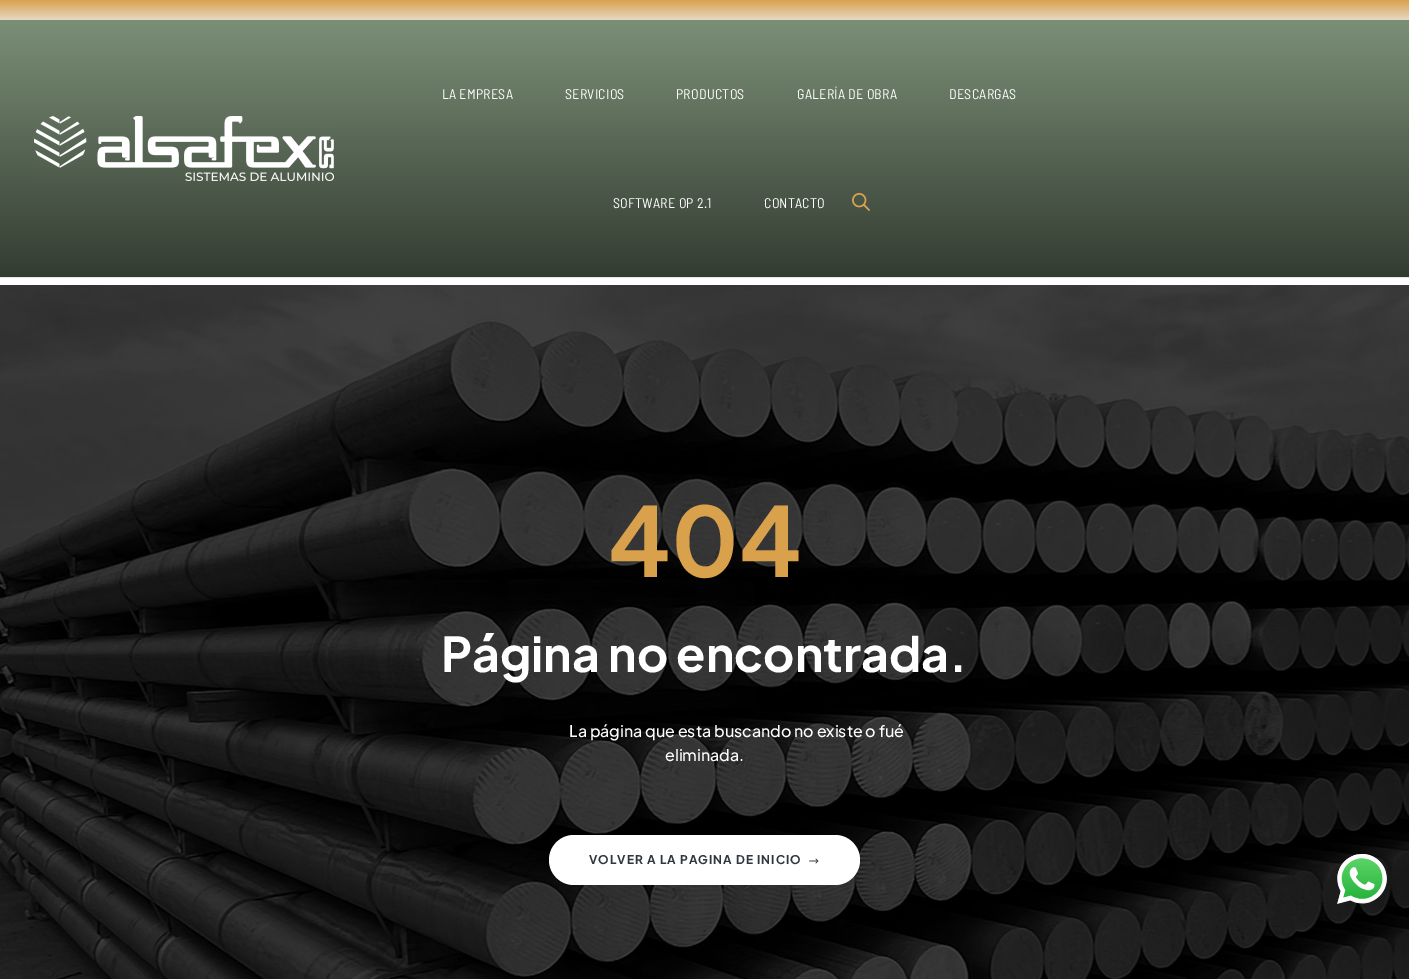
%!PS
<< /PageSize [1409 979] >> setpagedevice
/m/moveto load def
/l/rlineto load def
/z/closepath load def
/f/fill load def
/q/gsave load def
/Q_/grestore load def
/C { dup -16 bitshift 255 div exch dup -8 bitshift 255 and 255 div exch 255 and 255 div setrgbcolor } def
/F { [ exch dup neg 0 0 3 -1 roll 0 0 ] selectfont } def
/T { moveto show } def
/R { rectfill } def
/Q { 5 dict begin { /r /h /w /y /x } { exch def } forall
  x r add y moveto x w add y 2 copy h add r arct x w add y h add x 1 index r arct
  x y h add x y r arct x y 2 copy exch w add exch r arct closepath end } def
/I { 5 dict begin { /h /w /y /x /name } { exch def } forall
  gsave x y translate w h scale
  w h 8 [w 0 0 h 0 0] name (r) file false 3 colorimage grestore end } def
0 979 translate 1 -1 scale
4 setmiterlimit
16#FFFFFF C
0 0 1409 979 R
q 0 0 m 1409 0 l 0 20 l -1409 0 l z clip newpath
<< /ShadingType 2 /ColorSpace /DeviceRGB /Coords [705 0 705 20] /Extend [true true] /Function << /FunctionType 2 /Domain [0 1] /C0 [.855 .631 .298] /C1 [.898 .851 .776] /N 1 >> >> shfill Q_
q 0 20 m 1409 0 l 0 257 l -1409 0 l z clip newpath
<< /ShadingType 2 /ColorSpace /DeviceRGB /Coords [705 20 705 277] /Extend [true true] /Function << /FunctionType 2 /Domain [0 1] /C0 [.482 .561 .467] /C1 [.2 .235 .192] /N 1 >> >> shfill Q_
(1.rgb) 34 116 300 65 I
/BarlowSemiCondensed-Regular 14 F
442 99 m .25 0 (LA EMPRESA) ashow
565 99 m .25 0 (SERVICIOS) ashow
676 99 m .25 0 (PRODUCTOS) ashow
797 99 m .25 0 (GALERÍA DE OBRA) ashow
949 99 m .25 0 (DESCARGAS) ashow
613 208 m .25 0 (SOFTWARE OP 2.1) ashow
764 208 m .25 0 (CONTACTO) ashow
(2.rgb) 852 193 18 18 I
(3.rgb) 0 285 1409 694 I
16#E5E5E5 C
0 277 1409 1 R
/PlusJakartaSans-Bold 96 F
16#DAA14C C
(404) 608 577 T
/PlusJakartaSans-Bold 48 F
16#FFFFFF C
(Página no encontrada.) 441 672 T
/PlusJakartaSans-Medium 16 F
(La página que esta buscando no existe o fué) 569 737 T
(eliminada.) 665 761 T
549 835 311 50 25 Q f
/PlusJakartaSans-Bold 12 F
16#30373E C
589 864 m 1 0 (VOLVER A LA PAGINA DE INICIO) ashow
(4.rgb) 809 858 10 6 I
(5.rgb) 1337 854 50 50 I
showpage
